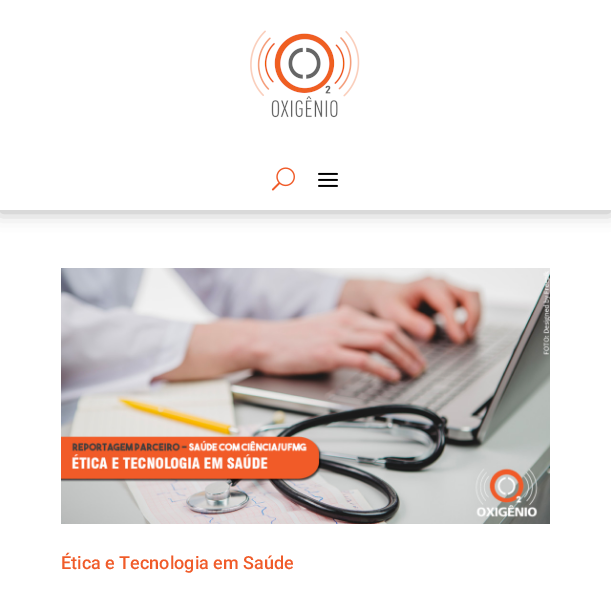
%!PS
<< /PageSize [611 593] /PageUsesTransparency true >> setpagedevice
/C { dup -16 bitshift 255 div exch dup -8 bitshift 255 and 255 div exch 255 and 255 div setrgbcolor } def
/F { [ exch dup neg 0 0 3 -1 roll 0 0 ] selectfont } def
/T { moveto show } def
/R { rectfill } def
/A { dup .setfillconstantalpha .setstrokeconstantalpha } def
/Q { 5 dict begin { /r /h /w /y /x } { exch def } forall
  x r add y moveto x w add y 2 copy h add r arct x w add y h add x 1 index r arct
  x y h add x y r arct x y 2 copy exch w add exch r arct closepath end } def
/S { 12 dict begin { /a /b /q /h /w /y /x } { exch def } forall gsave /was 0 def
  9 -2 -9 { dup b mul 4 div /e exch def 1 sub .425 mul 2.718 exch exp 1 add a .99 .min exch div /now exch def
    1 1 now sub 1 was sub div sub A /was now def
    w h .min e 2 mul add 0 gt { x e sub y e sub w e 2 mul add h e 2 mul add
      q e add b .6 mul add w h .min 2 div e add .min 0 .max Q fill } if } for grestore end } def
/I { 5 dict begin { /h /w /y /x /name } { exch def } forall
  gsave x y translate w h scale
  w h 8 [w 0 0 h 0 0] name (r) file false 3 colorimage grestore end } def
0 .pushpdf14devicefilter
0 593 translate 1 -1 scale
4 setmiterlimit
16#FFFFFF C
0 0 611 593 R
16#000000 C
0 2 611 210 0 9 .3 S
16#FFFFFF C
0 0 611 210 R
(1.rgb) 250 30 110 88 I
(2.rgb) 271 167 24 24 I
(3.rgb) 318 172 20 15 I
(4.rgb) 61 268 489 256 I
/Roboto-Medium 18 F
16#F05B29 C
(Ética e Tecnologia em Saúde) 61 569 T
.poppdf14devicefilter showpage
